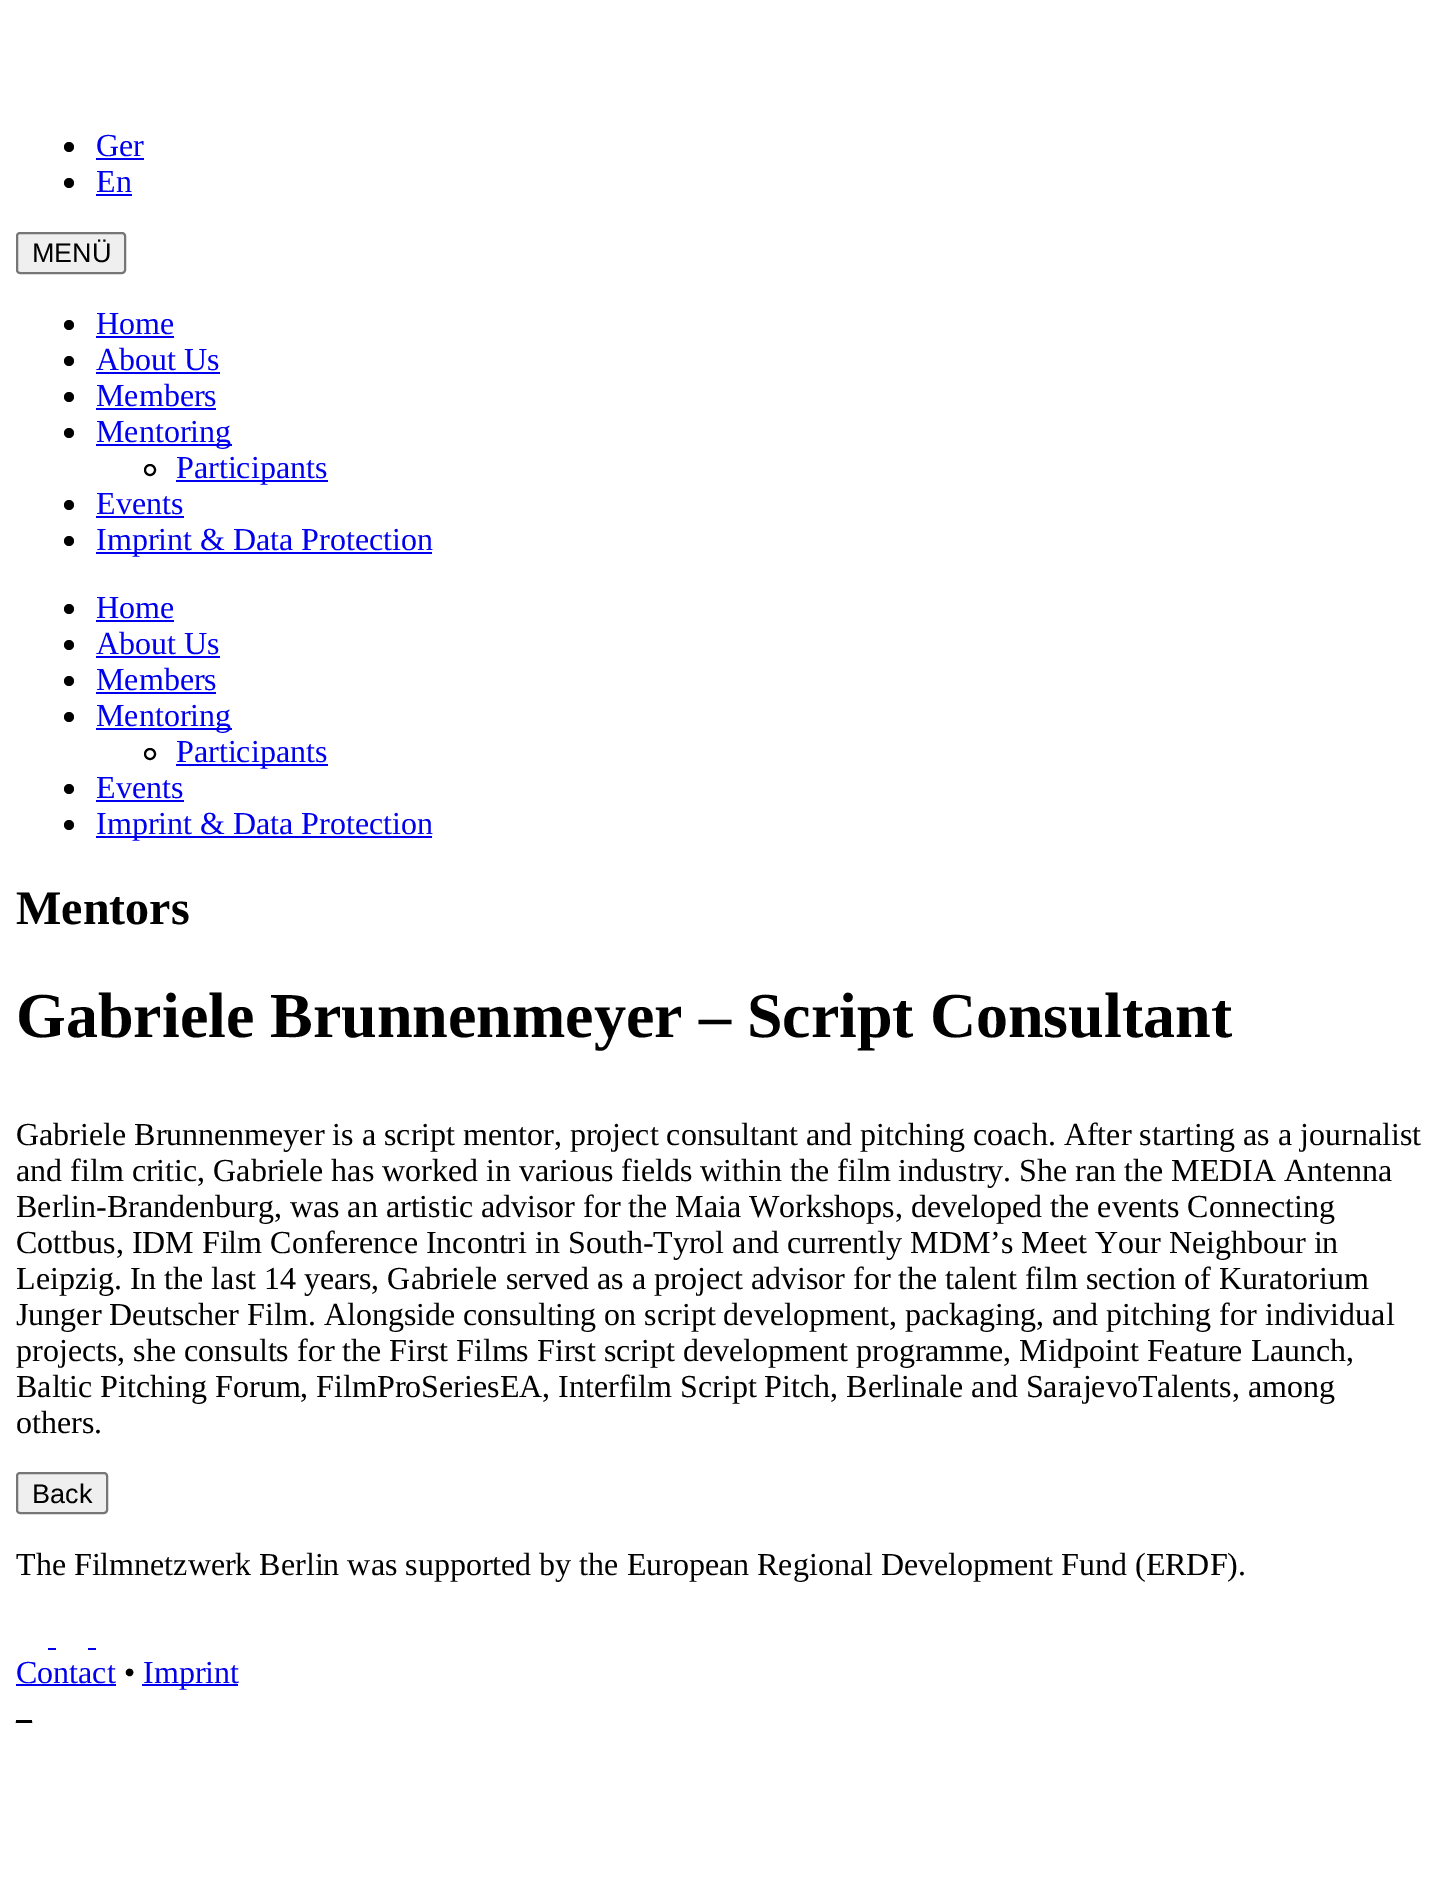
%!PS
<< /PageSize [1442 1896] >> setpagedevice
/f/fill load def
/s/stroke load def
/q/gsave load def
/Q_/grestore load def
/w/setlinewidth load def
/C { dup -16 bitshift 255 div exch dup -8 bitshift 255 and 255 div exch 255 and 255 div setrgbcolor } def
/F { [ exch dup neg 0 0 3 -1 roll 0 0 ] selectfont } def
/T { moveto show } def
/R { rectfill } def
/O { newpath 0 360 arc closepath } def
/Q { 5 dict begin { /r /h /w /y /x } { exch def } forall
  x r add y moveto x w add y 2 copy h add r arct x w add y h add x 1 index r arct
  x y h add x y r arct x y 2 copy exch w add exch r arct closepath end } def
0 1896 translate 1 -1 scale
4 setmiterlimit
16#FFFFFF C
0 0 1442 1896 R
16#000000 C
69 147 5 O f
/LiberationSerif-Regular 32 F
16#0000EE C
(Ger) 96 156 T
96 158 48 2 R
16#000000 C
69 183 5 O f
16#0000EE C
(En) 96 192 T
96 194 36 2 R
16#EFEFEF C
17 233 108 40 3 Q q f Q_
16#767676 C
2 w
s
/LiberationSans-Regular 27 F
16#000000 C
(MENÜ) 32 262 T
69 325 5 O f
/LiberationSerif-Regular 32 F
16#0000EE C
(Home) 96 334 T
96 336 78 2 R
16#000000 C
69 361 5 O f
16#0000EE C
(About Us) 96 370 T
96 372 124 2 R
16#000000 C
69 397 5 O f
16#0000EE C
(Members) 96 406 T
96 408 120 2 R
16#000000 C
69 433 5 O f
16#0000EE C
96 444 136 2 R
(Mentoring) 96 442 T
16#000000 C
150 470 5 O s
16#0000EE C
176 480 152 2 R
(Participants) 176 478 T
16#000000 C
69 505 5 O f
16#0000EE C
(Events) 96 514 T
96 516 88 2 R
16#000000 C
69 541 5 O f
16#0000EE C
96 552 336 2 R
(Imprint & Data Protection) 96 550 T
16#000000 C
69 609 5 O f
16#0000EE C
(Home) 96 618 T
96 620 78 2 R
16#000000 C
69 645 5 O f
16#0000EE C
(About Us) 96 654 T
96 656 124 2 R
16#000000 C
69 681 5 O f
16#0000EE C
(Members) 96 690 T
96 692 120 2 R
16#000000 C
69 717 5 O f
16#0000EE C
96 728 136 2 R
(Mentoring) 96 726 T
16#000000 C
150 754 5 O s
16#0000EE C
176 764 152 2 R
(Participants) 176 762 T
16#000000 C
69 789 5 O f
16#0000EE C
(Events) 96 798 T
96 800 88 2 R
16#000000 C
69 825 5 O f
16#0000EE C
96 836 336 2 R
(Imprint & Data Protection) 96 834 T
/LiberationSerif-Bold 48 F
16#000000 C
(Mentors) 16 924 T
/LiberationSerif-Bold 64 F
(Gabriele Brunnenmeyer – Script Consultant) 16 1037 T
/LiberationSerif-Regular 32 F
(Gabriele Brunnenmeyer is a script mentor, project consultant and pitching coach. After starting as a journalist) 16 1145 T
(and film critic, Gabriele has worked in various fields within the film industry. She ran the MEDIA Antenna) 16 1181 T
(Berlin-Brandenburg, was an artistic advisor for the Maia Workshops, developed the events Connecting) 16 1217 T
(Cottbus, IDM Film Conference Incontri in South-Tyrol and currently MDM’s Meet Your Neighbour in) 16 1253 T
(Leipzig. In the last 14 years, Gabriele served as a project advisor for the talent film section of Kuratorium) 16 1289 T
(Junger Deutscher Film. Alongside consulting on script development, packaging, and pitching for individual) 16 1325 T
(projects, she consults for the First Films First script development programme, Midpoint Feature Launch,) 16 1361 T
(Baltic Pitching Forum, FilmProSeriesEA, Interfilm Script Pitch, Berlinale and SarajevoTalents, among) 16 1397 T
(others.) 16 1433 T
16#EFEFEF C
17 1473 90 40 3 Q q f Q_
16#767676 C
s
/LiberationSans-Regular 27 F
16#000000 C
(Back) 32 1503 T
/LiberationSerif-Regular 32 F
(The Filmnetzwerk Berlin was supported by the European Regional Development Fund \(ERDF\).) 16 1575 T
16#0000EE C
48 1648 8 2 R
88 1648 8 2 R
(Contact) 16 1683 T
16 1684 100 2 R
16#000000 C
(•) 124 1683 T
16#0000EE C
142 1684 96 2 R
(Imprint) 143 1683 T
16#000000 C
16 1720 16 2 R
(_) 16 1719 T
showpage
